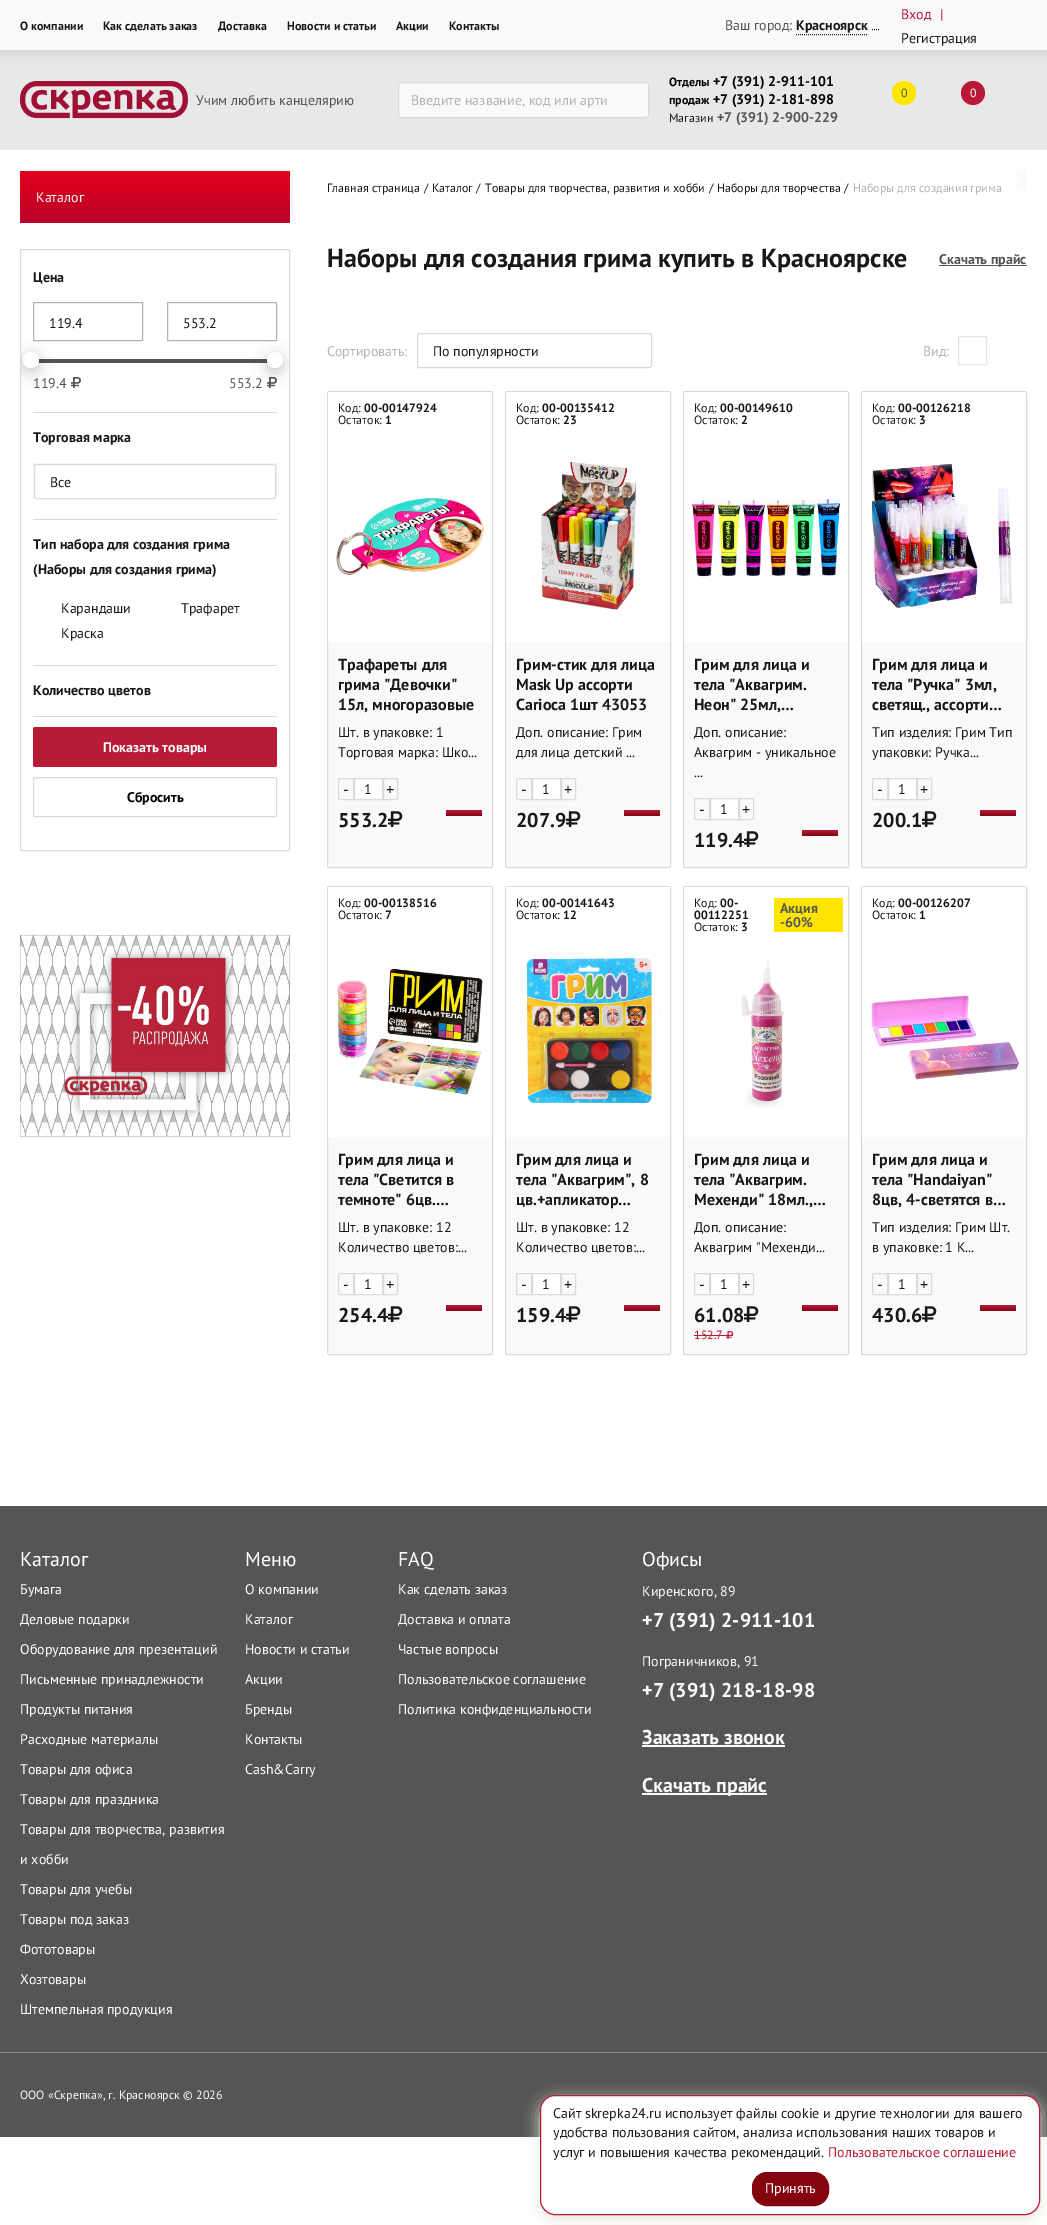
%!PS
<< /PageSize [1047 2225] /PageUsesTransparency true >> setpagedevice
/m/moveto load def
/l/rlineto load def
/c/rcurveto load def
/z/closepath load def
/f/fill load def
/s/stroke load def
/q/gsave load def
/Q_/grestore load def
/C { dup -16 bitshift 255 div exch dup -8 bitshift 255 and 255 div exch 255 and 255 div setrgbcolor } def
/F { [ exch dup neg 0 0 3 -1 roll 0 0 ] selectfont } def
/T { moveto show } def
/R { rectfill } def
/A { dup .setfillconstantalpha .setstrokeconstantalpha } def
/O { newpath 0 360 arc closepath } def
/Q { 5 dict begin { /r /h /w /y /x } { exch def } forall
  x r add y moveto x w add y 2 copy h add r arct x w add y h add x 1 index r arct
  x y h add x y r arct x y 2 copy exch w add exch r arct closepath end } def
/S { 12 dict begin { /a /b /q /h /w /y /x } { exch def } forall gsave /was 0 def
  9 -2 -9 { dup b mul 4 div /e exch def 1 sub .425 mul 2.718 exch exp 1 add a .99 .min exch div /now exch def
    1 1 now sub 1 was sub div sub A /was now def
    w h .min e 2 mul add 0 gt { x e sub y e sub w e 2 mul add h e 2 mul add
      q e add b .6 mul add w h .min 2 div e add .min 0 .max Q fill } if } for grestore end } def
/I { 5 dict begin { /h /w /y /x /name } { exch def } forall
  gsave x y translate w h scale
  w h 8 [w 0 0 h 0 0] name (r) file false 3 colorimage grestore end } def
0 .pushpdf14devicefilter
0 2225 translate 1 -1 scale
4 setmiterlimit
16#FFFFFF C
0 0 1047 2225 R
16#E8E8E8 C
0 50 1047 100 R
16#000000 C
0 4 1047 50 0 5 .1 S
16#F9F9FA C
0 0 1047 50 R
/PTSans-Bold 12 F
16#1A171B C
(О компании) 20 30 T
(Как сделать заказ) 103 30 T
(Доставка) 218 30 T
(Новости и статьи) 287 30 T
(Акции) 396 30 T
(Контакты) 449 30 T
/PTSans-Regular 14 F
16#555555 C
(Ваш город:) 725 30 T
/PTSans-Bold 14 F
16#1A171B C
(Красноярск) 796 30 T
[1 1] 0 setdash
796 34.5 m 72 0 l s
872 29.5 m 8 0 l s
/PTSans-Regular 14 F
16#B91B37 C
(Вход) 901 19 T
(|) 940 19 T
16#1A171B C
(Регистрация) 901 43 T
(1.rgb) 20 81 168 38 I
/PTSans-Bold 12 F
16#000000 C
(Отделы) 669 86 T
/PTSans-Bold 14 F
(+7 \(391\) 2-911-101) 713 86 T
/PTSans-Bold 12 F
(продаж) 669 104 T
/PTSans-Bold 14 F
(+7 \(391\) 2-181-898) 713 104 T
/PTSans-Regular 12 F
16#1A171B C
(Магазин) 669 122 T
/PTSans-Bold 14 F
16#555555 C
(+7 \(391\) 2-900-229) 717 122 T
16#FEE500 C
904 93 12 O f
/PTSans-Regular 12 F
16#555555 C
(0) 901 97 T
16#B91B37 C
973 93 12 O f
16#F9F9FA C
(0) 970 97 T
/PTSans-Regular 14 F
16#555555 C
(Учим любить канцелярию) 196 105 T
16#F9F9FA C
398.5 82.5 250 35 2.5 Q q f Q_
16#D9DADB C
[] 0 setdash
s
16#B1B3B4 C
(Введите название, код или арти) 411 105 T
q 20 171 270 52 2 Q clip newpath
<< /ShadingType 2 /ColorSpace /DeviceRGB /Coords [155 171 155 223] /Extend [true true] /Function << /FunctionType 2 /Domain [0 1] /C0 [.886 0 .102] /C1 [.733 .012 .169] /N 1 >> >> shfill Q_
16#F9F9FA C
(Каталог) 36 202 T
16#D9DADB C
20.5 249.5 269 601 1.5 Q s
/PTSans-Bold 14 F
16#1A171B C
(Цена) 33 282 T
16#B1B3B4 C
33.5 302.5 109 38 rectstroke
/PTSans-Regular 14 F
16#1A171B C
(119.4) 49 328 T
16#B1B3B4 C
167.5 302.5 109 38 rectstroke
16#1A171B C
(553.2) 183 328 T
16#D9DADB C
33 412 244 1 R
16#555555 C
33 359 235 4 R
q
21 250 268 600 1 Q clip newpath
16#000000 C
23 356 16 16 8 7.5 .2 S
Q_
16#FFFFFF C
31 360 8 O f
(2.rgb) 267 377 10 11 I
q
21 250 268 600 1 Q clip newpath
16#000000 C
267 356 16 16 8 7.5 .2 S
Q_
275 360 8 O f
16#555555 C
(119.4) 33 388 T
(2.rgb) 71 377 10 11 I
(553.2) 229 388 T
16#D9DADB C
33 519 244 1 R
/PTSans-Bold 14 F
16#1A171B C
(Торговая марка) 33 442 T
16#F4F4F4 C
33 463 244 1 R
276 463 1 36 R
33 463 1 36 R
16#D9DADB C
34.5 464.5 241 34 1.5 Q s
/PTSans-Regular 14 F
16#1A171B C
(Все) 50 487 T
16#D9DADB C
33 665 244 1 R
/PTSans-Bold 14 F
16#1A171B C
(Тип набора для создания грима) 33 549 T
(\(Наборы для создания грима\)) 33 574 T
/PTSans-Regular 14 F
(Карандаши) 61 613 T
(Трафарет) 181 613 T
(Краска) 61 638 T
16#D9DADB C
33 716 244 1 R
/PTSans-Bold 14 F
16#1A171B C
(Количество цветов) 33 695 T
16#B91B37 C
33 727 244 40 2 Q f
16#F9F9FA C
(Показать товары) 103 752 T
16#D9DADB C
33.5 777.5 243 39 1.5 Q s
16#000000 C
(Сбросить) 127 802 T
(3.rgb) 20 935 270 202 I
/PTSans-Regular 12 F
16#1A171B C
(Главная страница) 327 192 T
(/) 424 192 T
(Каталог) 432 192 T
(/) 476 192 T
(Товары для творчества, развития и хобби) 485 192 T
(/) 709 192 T
(Наборы для творчества) 717 192 T
(/) 844 192 T
16#B1B3B4 C
(Наборы для создания грима) 853 192 T
/PTSans-Bold 26 F
16#1A171B C
(Наборы для создания грима купить в Красноярске) 327 267 T
16#555555 C
939 265 88 1 R
/PTSans-Bold 14 F
(Скачать прайс) 939 264 T
/PTSans-Regular 14 F
16#B1B3B4 C
(Сортировать:) 327 356 T
16#D9DADB C
417.5 333.5 234 34 1.5 Q s
16#1A171B C
(По популярности) 433 356 T
16#B1B3B4 C
(Вид:) 923 356 T
16#E4E4E4 C
958.5 336.5 28 28 rectstroke
16#F9F9FA C
327.5 391.5 165 476 1.5 Q q f Q_
16#D9DADB C
s
16#FFFFFF C
328 392 164 250 R
/PTSans-Regular 12 F
16#1A171B C
(Код:) 338 412 T
/PTSans-Bold 12 F
(00-00147924) 364 412 T
/PTSans-Regular 12 F
(Остаток:) 338 424 T
/PTSans-Bold 12 F
(1) 385 424 T
(4.rgb) 336 493 148 82 I
q 1015 170 m 12 0 l 0 20 l -12 0 l z clip newpath
<< /ShadingType 2 /ColorSpace /DeviceRGB /Coords [1027 180 1007 180] /Extend [true true] /Function << /FunctionType 2 /Domain [0 1] /C0 [.976 .976 .98] /C1 [1 1 1] /N 1 >> >> shfill Q_
/PTSans-Bold 16 F
(Трафареты для) 338 670 T
(грима "Девочки") 338 690 T
(15л, многоразовые) 338 710 T
/PTSans-Regular 14 F
(Шт. в упаковке: 1) 338 737 T
(Торговая марка: Шко...) 338 757 T
16#D9DADB C
340 778.5 m 13.5 0 l 0 21 l -13.5 0 l -1 0 -1.5 -.5 -1.5 -1.5 c 0 -18 l 0 -1 .5 -1.5 1.5 -1.5 c z s
/PTSans-Regular 16 F
16#1A171B C
(-) 343 795 T
16#FFFFFF C
354.5 778.5 m 28 0 l 0 21 l -28 0 l z q f Q_
16#D9DADB C
s
/PTSans-Regular 14 F
16#1A171B C
(1) 364 794 T
16#D9DADB C
383.5 778.5 m 12.5 0 l 1 0 1.5 .5 1.5 1.5 c 0 18 l 0 1 -.5 1.5 -1.5 1.5 c -12.5 0 l z s
/PTSans-Regular 16 F
16#1A171B C
(+) 386 795 T
/PTSans-Bold 20 F
(553.2) 338 827 T
(5.rgb) 388 811 15 16 I
q 446 810 36 6 3 Q clip newpath
<< /ShadingType 2 /ColorSpace /DeviceRGB /Coords [464 810 464 816] /Extend [true true] /Function << /FunctionType 2 /Domain [0 1] /C0 [.725 .106 .216] /C1 [.518 .016 .063] /N 1 >> >> shfill Q_
16#F9F9FA C
505.5 391.5 165 476 1.5 Q q f Q_
16#D9DADB C
s
16#FFFFFF C
506 392 164 250 R
/PTSans-Regular 12 F
16#1A171B C
(Код:) 516 412 T
/PTSans-Bold 12 F
(00-00135412) 542 412 T
/PTSans-Regular 12 F
(Остаток:) 516 424 T
/PTSans-Bold 12 F
(23) 563 424 T
(6.rgb) 541 461 95 149 I
/PTSans-Bold 16 F
(Грим-стик для лица) 516 670 T
(Mask Up ассорти) 516 690 T
(Carioca 1шт 43053) 516 710 T
/PTSans-Regular 14 F
(Доп. описание: Грим) 516 737 T
(для лица детский ...) 516 757 T
16#D9DADB C
518 778.5 m 13.5 0 l 0 21 l -13.5 0 l -1 0 -1.5 -.5 -1.5 -1.5 c 0 -18 l 0 -1 .5 -1.5 1.5 -1.5 c z s
/PTSans-Regular 16 F
16#1A171B C
(-) 521 795 T
16#FFFFFF C
532.5 778.5 m 28 0 l 0 21 l -28 0 l z q f Q_
16#D9DADB C
s
/PTSans-Regular 14 F
16#1A171B C
(1) 542 794 T
16#D9DADB C
561.5 778.5 m 12.5 0 l 1 0 1.5 .5 1.5 1.5 c 0 18 l 0 1 -.5 1.5 -1.5 1.5 c -12.5 0 l z s
/PTSans-Regular 16 F
16#1A171B C
(+) 564 795 T
/PTSans-Bold 20 F
(207.9) 516 827 T
(5.rgb) 566 811 15 16 I
q 624 810 36 6 3 Q clip newpath
<< /ShadingType 2 /ColorSpace /DeviceRGB /Coords [642 810 642 816] /Extend [true true] /Function << /FunctionType 2 /Domain [0 1] /C0 [.725 .106 .216] /C1 [.518 .016 .063] /N 1 >> >> shfill Q_
16#F9F9FA C
683.5 391.5 165 476 1.5 Q q f Q_
16#D9DADB C
s
16#FFFFFF C
684 392 164 250 R
/PTSans-Regular 12 F
16#1A171B C
(Код:) 694 412 T
/PTSans-Bold 12 F
(00-00149610) 720 412 T
/PTSans-Regular 12 F
(Остаток:) 694 424 T
/PTSans-Bold 12 F
(2) 741 424 T
(7.rgb) 692 498 149 79 I
/PTSans-Bold 16 F
(Грим для лица и) 694 670 T
(тела "Аквагрим.) 694 690 T
(Неон" 25мл,…) 694 710 T
/PTSans-Regular 14 F
(Доп. описание:) 694 737 T
(Аквагрим - уникальное) 694 757 T
(...) 694 777 T
16#D9DADB C
696 798.5 m 13.5 0 l 0 21 l -13.5 0 l -1 0 -1.5 -.5 -1.5 -1.5 c 0 -18 l 0 -1 .5 -1.5 1.5 -1.5 c z s
/PTSans-Regular 16 F
16#1A171B C
(-) 699 815 T
16#FFFFFF C
710.5 798.5 m 28 0 l 0 21 l -28 0 l z q f Q_
16#D9DADB C
s
/PTSans-Regular 14 F
16#1A171B C
(1) 720 814 T
16#D9DADB C
739.5 798.5 m 12.5 0 l 1 0 1.5 .5 1.5 1.5 c 0 18 l 0 1 -.5 1.5 -1.5 1.5 c -12.5 0 l z s
/PTSans-Regular 16 F
16#1A171B C
(+) 742 815 T
/PTSans-Bold 20 F
(119.4) 694 847 T
(5.rgb) 744 831 15 16 I
q 802 830 36 6 3 Q clip newpath
<< /ShadingType 2 /ColorSpace /DeviceRGB /Coords [820 830 820 836] /Extend [true true] /Function << /FunctionType 2 /Domain [0 1] /C0 [.725 .106 .216] /C1 [.518 .016 .063] /N 1 >> >> shfill Q_
16#F9F9FA C
861.5 391.5 165 476 1.5 Q q f Q_
16#D9DADB C
s
16#FFFFFF C
862 392 164 250 R
/PTSans-Regular 12 F
16#1A171B C
(Код:) 872 412 T
/PTSans-Bold 12 F
(00-00126218) 898 412 T
/PTSans-Regular 12 F
(Остаток:) 872 424 T
/PTSans-Bold 12 F
(3) 919 424 T
(8.rgb) 872 463 140 145 I
/PTSans-Bold 16 F
(Грим для лица и) 872 670 T
(тела "Ручка" 3мл,) 872 690 T
(светящ., ассорти…) 872 710 T
/PTSans-Regular 14 F
(Тип изделия: Грим Тип) 872 737 T
(упаковки: Ручка...) 872 757 T
16#D9DADB C
874 778.5 m 13.5 0 l 0 21 l -13.5 0 l -1 0 -1.5 -.5 -1.5 -1.5 c 0 -18 l 0 -1 .5 -1.5 1.5 -1.5 c z s
/PTSans-Regular 16 F
16#1A171B C
(-) 877 795 T
16#FFFFFF C
888.5 778.5 m 28 0 l 0 21 l -28 0 l z q f Q_
16#D9DADB C
s
/PTSans-Regular 14 F
16#1A171B C
(1) 898 794 T
16#D9DADB C
917.5 778.5 m 12.5 0 l 1 0 1.5 .5 1.5 1.5 c 0 18 l 0 1 -.5 1.5 -1.5 1.5 c -12.5 0 l z s
/PTSans-Regular 16 F
16#1A171B C
(+) 920 795 T
/PTSans-Bold 20 F
(200.1) 872 827 T
(5.rgb) 922 811 15 16 I
q 980 810 36 6 3 Q clip newpath
<< /ShadingType 2 /ColorSpace /DeviceRGB /Coords [998 810 998 816] /Extend [true true] /Function << /FunctionType 2 /Domain [0 1] /C0 [.725 .106 .216] /C1 [.518 .016 .063] /N 1 >> >> shfill Q_
16#F9F9FA C
327.5 886.5 165 468 1.5 Q q f Q_
16#D9DADB C
s
16#FFFFFF C
328 887 164 250 R
/PTSans-Regular 12 F
16#1A171B C
(Код:) 338 907 T
/PTSans-Bold 12 F
(00-00138516) 364 907 T
/PTSans-Regular 12 F
(Остаток:) 338 919 T
/PTSans-Bold 12 F
(7) 385 919 T
(9.rgb) 337 968 146 127 I
/PTSans-Bold 16 F
(Грим для лица и) 338 1165 T
(тела "Светится в) 338 1185 T
(темноте" 6цв.…) 338 1205 T
/PTSans-Regular 14 F
(Шт. в упаковке: 12) 338 1232 T
(Количество цветов:...) 338 1252 T
16#D9DADB C
340 1273.5 m 13.5 0 l 0 21 l -13.5 0 l -1 0 -1.5 -.5 -1.5 -1.5 c 0 -18 l 0 -1 .5 -1.5 1.5 -1.5 c z s
/PTSans-Regular 16 F
16#1A171B C
(-) 343 1290 T
16#FFFFFF C
354.5 1273.5 m 28 0 l 0 21 l -28 0 l z q f Q_
16#D9DADB C
s
/PTSans-Regular 14 F
16#1A171B C
(1) 364 1289 T
16#D9DADB C
383.5 1273.5 m 12.5 0 l 1 0 1.5 .5 1.5 1.5 c 0 18 l 0 1 -.5 1.5 -1.5 1.5 c -12.5 0 l z s
/PTSans-Regular 16 F
16#1A171B C
(+) 386 1290 T
/PTSans-Bold 20 F
(254.4) 338 1322 T
(5.rgb) 388 1306 15 16 I
q 446 1305 36 6 3 Q clip newpath
<< /ShadingType 2 /ColorSpace /DeviceRGB /Coords [464 1305 464 1311] /Extend [true true] /Function << /FunctionType 2 /Domain [0 1] /C0 [.725 .106 .216] /C1 [.518 .016 .063] /N 1 >> >> shfill Q_
16#F9F9FA C
505.5 886.5 165 468 1.5 Q q f Q_
16#D9DADB C
s
16#FFFFFF C
506 887 164 250 R
/PTSans-Regular 12 F
16#1A171B C
(Код:) 516 907 T
/PTSans-Bold 12 F
(00-00141643) 542 907 T
/PTSans-Regular 12 F
(Остаток:) 516 919 T
/PTSans-Bold 12 F
(12) 563 919 T
(10.rgb) 526 958 136 146 I
/PTSans-Bold 16 F
(Грим для лица и) 516 1165 T
(тела "Аквагрим", 8) 516 1185 T
(цв.+апликатор…) 516 1205 T
/PTSans-Regular 14 F
(Шт. в упаковке: 12) 516 1232 T
(Количество цветов:...) 516 1252 T
16#D9DADB C
518 1273.5 m 13.5 0 l 0 21 l -13.5 0 l -1 0 -1.5 -.5 -1.5 -1.5 c 0 -18 l 0 -1 .5 -1.5 1.5 -1.5 c z s
/PTSans-Regular 16 F
16#1A171B C
(-) 521 1290 T
16#FFFFFF C
532.5 1273.5 m 28 0 l 0 21 l -28 0 l z q f Q_
16#D9DADB C
s
/PTSans-Regular 14 F
16#1A171B C
(1) 542 1289 T
16#D9DADB C
561.5 1273.5 m 12.5 0 l 1 0 1.5 .5 1.5 1.5 c 0 18 l 0 1 -.5 1.5 -1.5 1.5 c -12.5 0 l z s
/PTSans-Regular 16 F
16#1A171B C
(+) 564 1290 T
/PTSans-Bold 20 F
(159.4) 516 1322 T
(5.rgb) 566 1306 15 16 I
q 624 1305 36 6 3 Q clip newpath
<< /ShadingType 2 /ColorSpace /DeviceRGB /Coords [642 1305 642 1311] /Extend [true true] /Function << /FunctionType 2 /Domain [0 1] /C0 [.725 .106 .216] /C1 [.518 .016 .063] /N 1 >> >> shfill Q_
16#F9F9FA C
683.5 886.5 165 468 1.5 Q q f Q_
16#D9DADB C
s
16#FFFFFF C
684 887 164 250 R
/PTSans-Regular 12 F
16#1A171B C
(Код:) 694 907 T
/PTSans-Bold 12 F
(00-) 720 907 T
(00112251) 694 919 T
/PTSans-Regular 12 F
(Остаток:) 694 931 T
/PTSans-Bold 12 F
(3) 741 931 T
16#FEE500 C
774 898 69 34 R
/PTSans-Bold 14 F
16#555555 C
(Акция) 780 913 T
(-60%) 780 927 T
(11.rgb) 741 961 43 147 I
/PTSans-Bold 16 F
16#1A171B C
(Грим для лица и) 694 1165 T
(тела "Аквагрим.) 694 1185 T
(Мехенди" 18мл.,…) 694 1205 T
/PTSans-Regular 14 F
(Доп. описание:) 694 1232 T
(Аквагрим "Мехенди...) 694 1252 T
16#D9DADB C
696 1273.5 m 13.5 0 l 0 21 l -13.5 0 l -1 0 -1.5 -.5 -1.5 -1.5 c 0 -18 l 0 -1 .5 -1.5 1.5 -1.5 c z s
/PTSans-Regular 16 F
16#1A171B C
(-) 699 1290 T
16#FFFFFF C
710.5 1273.5 m 28 0 l 0 21 l -28 0 l z q f Q_
16#D9DADB C
s
/PTSans-Regular 14 F
16#1A171B C
(1) 720 1289 T
16#D9DADB C
739.5 1273.5 m 12.5 0 l 1 0 1.5 .5 1.5 1.5 c 0 18 l 0 1 -.5 1.5 -1.5 1.5 c -12.5 0 l z s
/PTSans-Regular 16 F
16#1A171B C
(+) 742 1290 T
/PTSans-Bold 20 F
(61.08) 694 1322 T
(5.rgb) 744 1306 15 16 I
q 802 1305 36 6 3 Q clip newpath
<< /ShadingType 2 /ColorSpace /DeviceRGB /Coords [820 1305 820 1311] /Extend [true true] /Function << /FunctionType 2 /Domain [0 1] /C0 [.725 .106 .216] /C1 [.518 .016 .063] /N 1 >> >> shfill Q_
/PTSans-Regular 12 F
16#B91B37 C
(152.7) 694 1339 T
(12.rgb) 726 1331 8 8 I
694 1335 39 1 R
16#F9F9FA C
861.5 886.5 165 468 1.5 Q q f Q_
16#D9DADB C
s
16#FFFFFF C
862 887 164 250 R
16#1A171B C
(Код:) 872 907 T
/PTSans-Bold 12 F
(00-00126207) 898 907 T
/PTSans-Regular 12 F
(Остаток:) 872 919 T
/PTSans-Bold 12 F
(1) 919 919 T
(13.rgb) 871 995 149 85 I
/PTSans-Bold 16 F
(Грим для лица и) 872 1165 T
(тела "Handaiyan") 872 1185 T
(8цв, 4-светятся в…) 872 1205 T
/PTSans-Regular 14 F
(Тип изделия: Грим Шт.) 872 1232 T
(в упаковке: 1 К...) 872 1252 T
16#D9DADB C
874 1273.5 m 13.5 0 l 0 21 l -13.5 0 l -1 0 -1.5 -.5 -1.5 -1.5 c 0 -18 l 0 -1 .5 -1.5 1.5 -1.5 c z s
/PTSans-Regular 16 F
16#1A171B C
(-) 877 1290 T
16#FFFFFF C
888.5 1273.5 m 28 0 l 0 21 l -28 0 l z q f Q_
16#D9DADB C
s
/PTSans-Regular 14 F
16#1A171B C
(1) 898 1289 T
16#D9DADB C
917.5 1273.5 m 12.5 0 l 1 0 1.5 .5 1.5 1.5 c 0 18 l 0 1 -.5 1.5 -1.5 1.5 c -12.5 0 l z s
/PTSans-Regular 16 F
16#1A171B C
(+) 920 1290 T
/PTSans-Bold 20 F
(430.6) 872 1322 T
(5.rgb) 922 1306 15 16 I
q 980 1305 36 6 3 Q clip newpath
<< /ShadingType 2 /ColorSpace /DeviceRGB /Coords [998 1305 998 1311] /Extend [true true] /Function << /FunctionType 2 /Domain [0 1] /C0 [.725 .106 .216] /C1 [.518 .016 .063] /N 1 >> >> shfill Q_
16#555555 C
0 1506 1047 631 R
/PTSans-Regular 20 F
16#FFFFFF C
(Каталог) 20 1566 T
/PTSans-Regular 14 F
(Бумага) 20 1594 T
(Деловые подарки) 20 1624 T
(Оборудование для презентаций) 20 1654 T
(Письменные принадлежности) 20 1684 T
(Продукты питания) 20 1714 T
(Расходные материалы) 20 1744 T
(Товары для офиса) 20 1774 T
(Товары для праздника) 20 1804 T
(Товары для творчества, развития) 20 1834 T
(и хобби) 20 1864 T
(Товары для учебы) 20 1894 T
(Товары под заказ) 20 1924 T
(Фототовары) 20 1954 T
(Хозтовары) 20 1984 T
(Штемпельная продукция) 20 2014 T
/PTSans-Regular 20 F
(Меню) 245 1566 T
/PTSans-Regular 14 F
(О компании) 245 1594 T
(Каталог) 245 1624 T
(Новости и статьи) 245 1654 T
(Акции) 245 1684 T
(Бренды) 245 1714 T
(Контакты) 245 1744 T
(Cash&Carry) 245 1774 T
/PTSans-Regular 20 F
(FAQ) 398 1566 T
/PTSans-Regular 14 F
(Как сделать заказ) 398 1594 T
(Доставка и оплата) 398 1624 T
(Частые вопросы) 398 1654 T
(Пользовательское соглашение) 398 1684 T
(Политика конфиденциальности) 398 1714 T
/PTSans-Regular 20 F
(Офисы) 642 1566 T
/PTSans-Regular 14 F
16#F9F9FA C
(Киренского, 89) 642 1596 T
/PTSans-Bold 20 F
(+7 \(391\) 2-911-101) 642 1627 T
/PTSans-Regular 14 F
(Пограничников, 91) 642 1666 T
/PTSans-Bold 20 F
(+7 \(391\) 218-18-98) 642 1697 T
(Заказать звонок) 642 1744 T
642 1745 143 2 R
642 1793 125 2 R
(Скачать прайс) 642 1792 T
16#8A8A8B C
0 2052 1047 1 R
/PTSans-Regular 12 F
16#F9F9FA C
(ООО «Скрепка», г. Красноярск © 2026) 20 2099 T
16#E7EADA C
540 2100 500 120 15 7.5 1 S
16#FFFFFF C
540.5 2095.5 499 119 14.5 Q q f Q_
16#B91B37 C
s
/PTSans-Regular 14 F
16#1A171B C
(Cайт skrepka24.ru использует файлы cookie и другие технологии для вашего) 553 2118 T
(удобства пользования сайтом, анализа использования наших товаров и) 553 2137 T
(услуг и повышения качества рекомендаций.) 553 2157 T
16#B91B37 C
(Пользовательское соглашение) 828 2157 T
16#840410 C
752.5 2172.5 76 33 14.5 Q q f Q_
s
16#FFFFFF C
(Принять) 765 2193 T
.poppdf14devicefilter showpage
